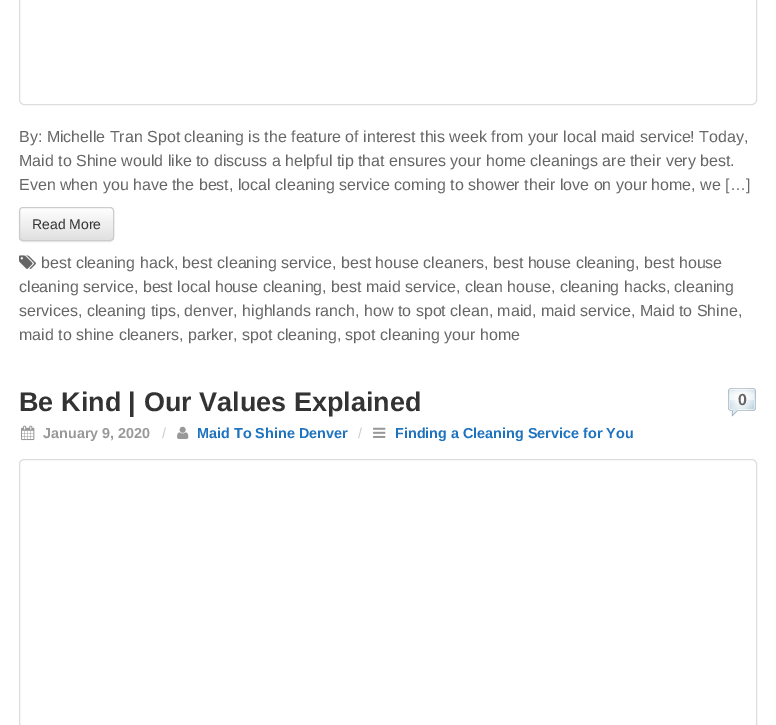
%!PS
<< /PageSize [776 725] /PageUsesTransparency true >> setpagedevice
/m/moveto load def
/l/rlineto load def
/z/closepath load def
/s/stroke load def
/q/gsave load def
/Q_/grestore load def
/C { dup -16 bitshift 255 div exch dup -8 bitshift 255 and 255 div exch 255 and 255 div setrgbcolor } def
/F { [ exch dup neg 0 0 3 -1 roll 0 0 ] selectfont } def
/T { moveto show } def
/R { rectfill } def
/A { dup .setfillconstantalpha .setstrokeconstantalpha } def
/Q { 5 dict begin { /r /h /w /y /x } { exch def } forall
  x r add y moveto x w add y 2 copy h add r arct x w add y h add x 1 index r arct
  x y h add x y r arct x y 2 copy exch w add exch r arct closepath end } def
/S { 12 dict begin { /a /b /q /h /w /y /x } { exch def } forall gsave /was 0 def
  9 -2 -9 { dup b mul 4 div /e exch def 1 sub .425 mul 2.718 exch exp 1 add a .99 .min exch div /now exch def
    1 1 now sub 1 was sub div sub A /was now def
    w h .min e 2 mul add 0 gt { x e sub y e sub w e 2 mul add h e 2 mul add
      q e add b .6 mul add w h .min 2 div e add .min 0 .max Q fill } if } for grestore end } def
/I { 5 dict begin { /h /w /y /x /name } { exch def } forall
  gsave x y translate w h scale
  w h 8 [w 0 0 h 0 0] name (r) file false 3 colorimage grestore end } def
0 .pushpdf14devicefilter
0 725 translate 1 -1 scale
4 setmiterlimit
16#FFFFFF C
0 0 776 725 R
16#DDDDDD C
19.5 -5.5 737 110 4.5 Q s
/LiberationSans-Regular 16 F
16#666666 C
(By: Michelle Tran Spot cleaning is the feature of interest this week from your local maid service! Today,) 19 142 T
(Maid to Shine would like to discuss a helpful tip that ensures your home cleanings are their very best.) 19 166 T
(Even when you have the best, local cleaning service coming to shower their love on your home, we […]) 19 190 T
16#000000 C
19 208 95 34 4 .5 .07 S
q
19 207 95 34 4 Q clip newpath
q 19 208 m 95 0 l 0 32 l -95 0 l z clip newpath
<< /ShadingType 2 /ColorSpace /DeviceRGB /Coords [67 208 67 240] /Extend [true true] /Function << /FunctionType 2 /Domain [0 1] /C0 [1 1 1] /C1 [.878 .878 .878] /N 1 >> >> shfill Q_
Q_
16#CCCCCC C
19.5 207.5 94 33 3.5 Q s
/LiberationSans-Regular 14 F
16#333333 C
(Read More) 32 229 T
(1.rgb) 19 255 17 14 I
/LiberationSans-Regular 16 F
16#666666 C
(best cleaning hack, best cleaning service, best house cleaners, best house cleaning, best house) 41 268 T
(cleaning service, best local house cleaning, best maid service, clean house, cleaning hacks, cleaning) 19 292 T
(services, cleaning tips, denver, highlands ranch, how to spot clean, maid, maid service, Maid to Shine,) 19 316 T
(maid to shine cleaners, parker, spot cleaning, spot cleaning your home) 19 340 T
/LiberationSans-Bold 27 F
16#333333 C
(Be Kind | Our Values Explained) 19 411 T
(2.rgb) 728 388 28 29 I
/LiberationSans-Bold 16 F
16#666666 C
(0) 738 405 T
(3.rgb) 21 425 14 16 I
/LiberationSans-Bold 14.4 F
16#999999 C
(January 9, 2020) 43 438 T
/LiberationSans-Regular 14.4 F
16#CCCCCC C
(/) 162 438 T
(4.rgb) 177 426 12 13 I
/LiberationSans-Bold 14.4 F
16#1E73BE C
(Maid To Shine Denver) 197 438 T
/LiberationSans-Regular 14.4 F
16#CCCCCC C
(/) 358 438 T
(5.rgb) 373 427 13 11 I
/LiberationSans-Bold 14.4 F
16#1E73BE C
(Finding a Cleaning Service for You) 395 438 T
16#DDDDDD C
19.5 459.5 737 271 4.5 Q s
.poppdf14devicefilter showpage
